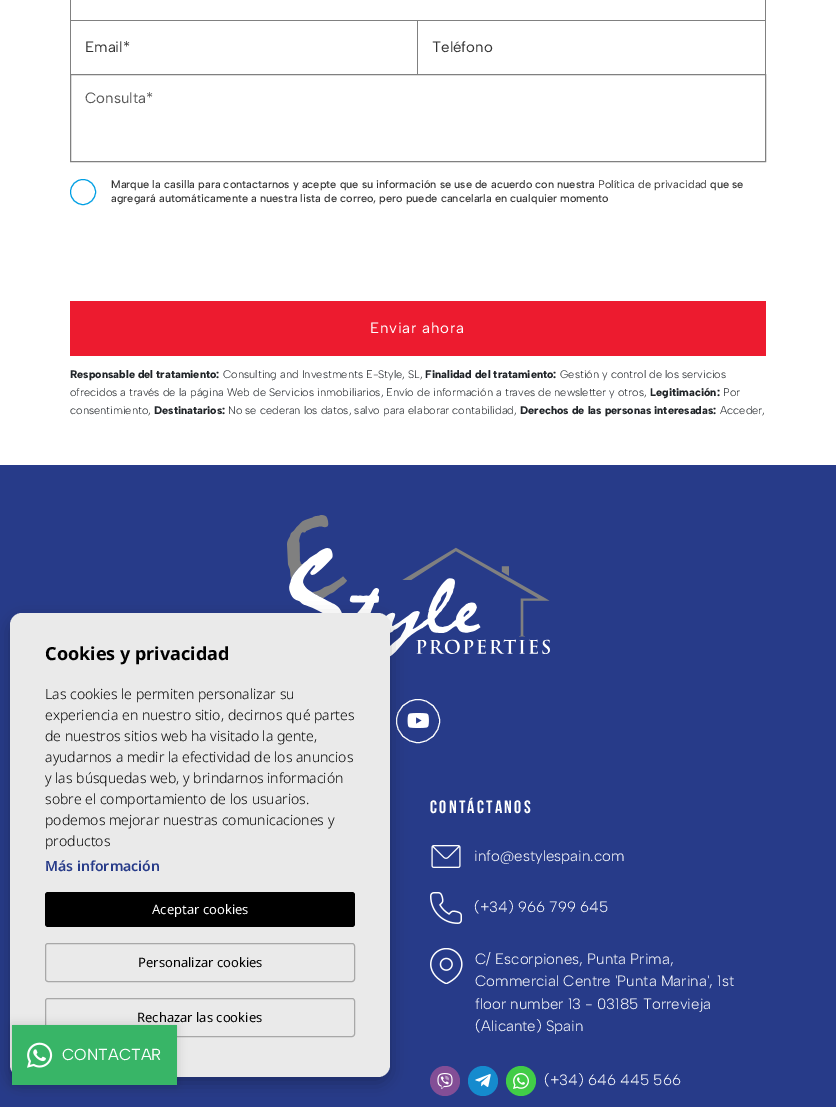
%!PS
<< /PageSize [836 1107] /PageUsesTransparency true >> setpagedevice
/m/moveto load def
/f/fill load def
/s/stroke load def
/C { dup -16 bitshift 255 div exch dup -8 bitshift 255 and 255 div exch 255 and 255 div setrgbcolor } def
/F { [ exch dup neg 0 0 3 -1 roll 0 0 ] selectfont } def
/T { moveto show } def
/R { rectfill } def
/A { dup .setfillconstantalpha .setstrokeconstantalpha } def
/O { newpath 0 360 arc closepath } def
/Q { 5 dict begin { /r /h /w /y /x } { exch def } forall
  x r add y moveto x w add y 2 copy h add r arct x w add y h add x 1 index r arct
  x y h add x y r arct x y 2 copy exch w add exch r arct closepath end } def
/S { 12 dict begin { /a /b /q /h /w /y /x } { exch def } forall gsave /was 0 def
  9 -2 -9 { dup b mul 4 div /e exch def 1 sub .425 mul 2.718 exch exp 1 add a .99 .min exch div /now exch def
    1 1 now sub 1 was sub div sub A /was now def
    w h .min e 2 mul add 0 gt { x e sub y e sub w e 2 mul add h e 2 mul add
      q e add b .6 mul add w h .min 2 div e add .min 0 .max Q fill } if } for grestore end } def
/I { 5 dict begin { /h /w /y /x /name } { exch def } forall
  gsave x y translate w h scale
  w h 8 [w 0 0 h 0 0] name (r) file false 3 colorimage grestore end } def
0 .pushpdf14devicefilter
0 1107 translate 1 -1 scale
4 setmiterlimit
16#FFFFFF C
0 0 836 1107 R
16#808080 C
765 0 1 20 R
70 0 1 20 R
70 20 696 1 R
417 20 1 54 R
70 20 1 54 R
/AlbertSans-Regular 15 F
16#333333 C
(Email*) 85 52 T
16#808080 C
765 20 1 54 R
16#333333 C
(Teléfono) 432 52 T
16#808080 C
70.5 74.5 695 87 rectstroke
16#575757 C
(Consulta*) 85 103 T
16#009FE3 C
83 192 12.5 O s
/AlbertSans-Medium 11 F
16#333333 C
(Marque la casilla para contactarnos y acepte que su información se use de acuerdo con nuestra) 111 188 T
/AlbertSans-Regular 11 F
(Política de privacidad) 598 188 T
/AlbertSans-Medium 11 F
(que se) 710 188 T
(agregará automáticamente a nuestra lista de correo, pero puede cancelarla en cualquier momento) 111 202 T
16#ED1B2F C
70 301 696 55 R
/AlbertSans-Regular 15 F
16#FFFFFF C
370 333 m .75 0 (Enviar ahora) ashow
/AlbertSans-ExtraBold 11 F
16#212529 C
(Responsable del tratamiento:) 70 378 T
/AlbertSans-Light 11 F
(Consulting and Investments E-Style, SL,) 223 378 T
/AlbertSans-ExtraBold 11 F
(Finalidad del tratamiento:) 425 378 T
/AlbertSans-Light 11 F
(Gestión y control de los servicios) 560 378 T
(ofrecidos a través de la página Web de Servicios inmobiliarios, Envío de información a traves de newsletter y otros,) 70 396 T
/AlbertSans-ExtraBold 11 F
(Legitimación:) 650 396 T
/AlbertSans-Light 11 F
(Por) 723 396 T
(consentimiento,) 70 414 T
/AlbertSans-ExtraBold 11 F
(Destinatarios:) 154 414 T
/AlbertSans-Light 11 F
(No se cederan los datos, salvo para elaborar contabilidad,) 228 414 T
/AlbertSans-ExtraBold 11 F
(Derechos de las personas interesadas:) 520 414 T
/AlbertSans-Light 11 F
(Acceder,) 720 414 T
16#273B89 C
0 465 836 642 R
(1.rgb) 287 515 263 142 I
16#FFFFFF C
418 721 21.5 O s
(2.rgb) 407 713 22 15 I
16#000000 C
10 619 380 464 12 8 .25 S
16#EAEAEA C
10 613 380 464 12 Q f
/NotoSans-Bold 18 F
16#000000 C
(Cookies y privacidad) 45 660 T
/NotoSans-Light 14 F
(Las cookies le permiten personalizar su) 45 699 T
(experiencia en nuestro sitio, decirnos qué partes) 45 720 T
(de nuestros sitios web ha visitado la gente,) 45 741 T
(ayudarnos a medir la efectividad de los anuncios) 45 762 T
(y las búsquedas web, y brindarnos información) 45 783 T
(sobre el comportamiento de los usuarios.) 45 804 T
(podemos mejorar nuestras comunicaciones y) 45 825 T
(productos) 45 846 T
/NotoSans-SemiBold 14 F
16#273B89 C
(Más información) 45 871 T
16#000000 C
45 892 310 35 3 Q f
/NotoSans-Regular 13 F
16#FFFFFF C
(Aceptar cookies) 152 914 T
16#A8A8A8 C
45.5 943.5 309 38 2.5 Q s
16#000000 C
(Personalizar cookies) 138 967 T
16#A8A8A8 C
45.5 998.5 309 38 2.5 Q s
16#000000 C
(Rechazar las cookies) 137 1022 T
/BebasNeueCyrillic-Regular 18 F
16#FFFFFF C
430 813 m 2.25 0 (CONTÁCTANOS) ashow
(3.rgb) 431 845 30 23 I
/AlbertSans-Light 15 F
(info@estylespain.com) 474 861 T
(4.rgb) 430 892 32 32 I
(\(+34\) 966 799 645) 474 912 T
(5.rgb) 430 948 33 36 I
(C/ Escorpiones, Punta Prima,) 475 964 T
(Commercial Centre 'Punta Marina', 1st) 475 986 T
(floor number 13 - 03185 Torrevieja) 475 1009 T
(\(Alicante\) Spain) 475 1031 T
16#834E96 C
445 1081 15 O f
(6.rgb) 437 1073 16 16 I
16#158BCE C
483 1081 15 O f
(7.rgb) 475 1074 16 13 I
16#41CC47 C
521 1081 15 O f
(8.rgb) 513 1073 16 16 I
16#FFFFFF C
(\(+34\) 646 445 566) 544 1085 T
16#000000 C
12 1025 165 60 0 5 .16 S
16#38B567 C
12 1025 165 60 R
(9.rgb) 27 1042 26 26 I
/AlbertSans-Regular 16 F
16#FFFFFF C
(CONTACTAR) 62 1060 T
.poppdf14devicefilter showpage
